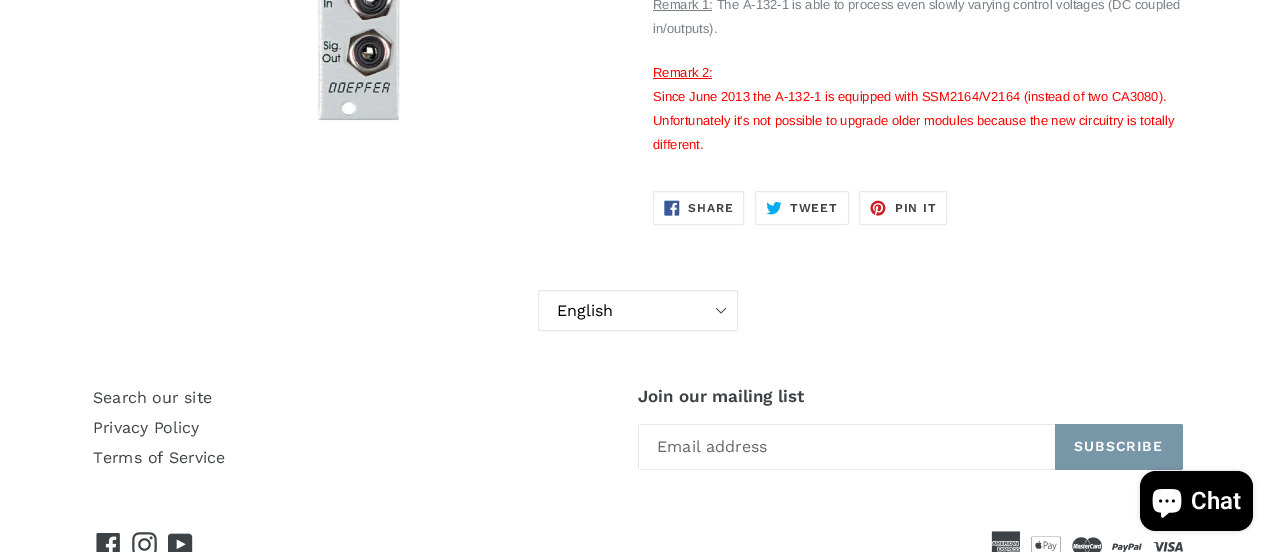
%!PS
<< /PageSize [1275 552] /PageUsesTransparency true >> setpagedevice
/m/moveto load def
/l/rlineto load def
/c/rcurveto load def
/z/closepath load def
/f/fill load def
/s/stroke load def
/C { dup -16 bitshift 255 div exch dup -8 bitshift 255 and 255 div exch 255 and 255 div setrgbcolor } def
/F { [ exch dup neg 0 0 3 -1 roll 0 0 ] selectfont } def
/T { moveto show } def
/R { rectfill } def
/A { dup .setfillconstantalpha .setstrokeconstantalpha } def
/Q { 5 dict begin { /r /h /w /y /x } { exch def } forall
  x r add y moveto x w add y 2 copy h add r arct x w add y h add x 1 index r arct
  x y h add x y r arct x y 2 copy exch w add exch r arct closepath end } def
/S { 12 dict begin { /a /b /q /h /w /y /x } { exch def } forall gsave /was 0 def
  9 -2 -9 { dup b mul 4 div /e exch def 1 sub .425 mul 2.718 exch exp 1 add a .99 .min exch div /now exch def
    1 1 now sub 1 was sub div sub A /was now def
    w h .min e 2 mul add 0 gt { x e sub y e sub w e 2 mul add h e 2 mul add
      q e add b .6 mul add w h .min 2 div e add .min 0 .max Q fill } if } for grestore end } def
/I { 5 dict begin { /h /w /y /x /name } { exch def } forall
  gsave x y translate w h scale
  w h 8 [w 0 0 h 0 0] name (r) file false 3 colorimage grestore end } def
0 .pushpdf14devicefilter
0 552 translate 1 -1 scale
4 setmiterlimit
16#FFFFFF C
0 0 1275 552 R
(1.rgb) 318 0 82 121 I
16#788188 C
653 10 59 1 R
/LiberationSans-Regular 13 F
(Remark 1: The A-132-1 is able to process even slowly varying control voltages \(DC coupled) 653 9 T
(in/outputs\).) 653 33 T
16#FF0000 C
(Remark 2:) 653 77 T
653 78 59 1 R
(Since June 2013 the A-132-1 is equipped with SSM2164/V2164 \(instead of two CA3080\).) 653 101 T
(Unfortunately it's not possible to upgrade older modules because the new circuitry is totally) 653 125 T
(different.) 653 149 T
16#E8E9EB C
653.5 191.5 90 33 1.5 Q s
(2.rgb) 664 200 16 16 I
/WorkSans-SemiBold 12 F
16#3D4246 C
688 212 m 1 0 (SHARE) ashow
16#E8E9EB C
755.5 191.5 93 33 1.5 Q s
(3.rgb) 766 201 16 14 I
16#3D4246 C
790 212 m 1 0 (TWEET) ashow
16#E8E9EB C
859.5 191.5 87 33 1.5 Q s
(4.rgb) 870 200 16 16 I
16#3D4246 C
895 212 m 1 0 (PIN IT) ashow
(5.rgb) 715 307 12 7 I
16#E8E9EB C
538.5 290.5 199 40 1.5 Q s
/WorkSans-Regular 16 F
16#000000 C
(English) 557 316 T
16#3D4246 C
(Search our site) 93 403 T
(Privacy Policy) 93 433 T
(Terms of Service) 93 463 T
/WorkSans-SemiBold 17 F
(Join our mailing list) 638 402 T
16#E8E9EB C
639 424 416 1 R
639 469 416 1 R
638 425 1 44 R
/WorkSans-Regular 16 F
16#666666 C
(Email address) 657 452 T
16#7796A8 C
1055 424 m 126 0 l 1 0 2 1 2 2 c 0 42 l 0 1 -1 2 -2 2 c -126 0 l z f
/WorkSans-SemiBold 14 F
16#FFFFFF C
1074 451 m 1.1 0 (SUBSCRIBE) ashow
(6.rgb) 96 533 24 19 I
(7.rgb) 132 532 25 20 I
(8.rgb) 168 533 25 19 I
(9.rgb) 991 531 30 21 I
(10.rgb) 1031 536 30 16 I
(11.rgb) 1072 537 30 15 I
(12.rgb) 1112 543 30 9 I
(13.rgb) 1153 542 30 10 I
16#000000 C
1140 471 113 60 16 2.5 .15 S
1140 471 113 60 16 Q f
(14.rgb) 1152 489 30 29 I
/Roboto-SemiBold 24 F
16#FFFFFF C
(Chat) 1191 509 T
.poppdf14devicefilter showpage
